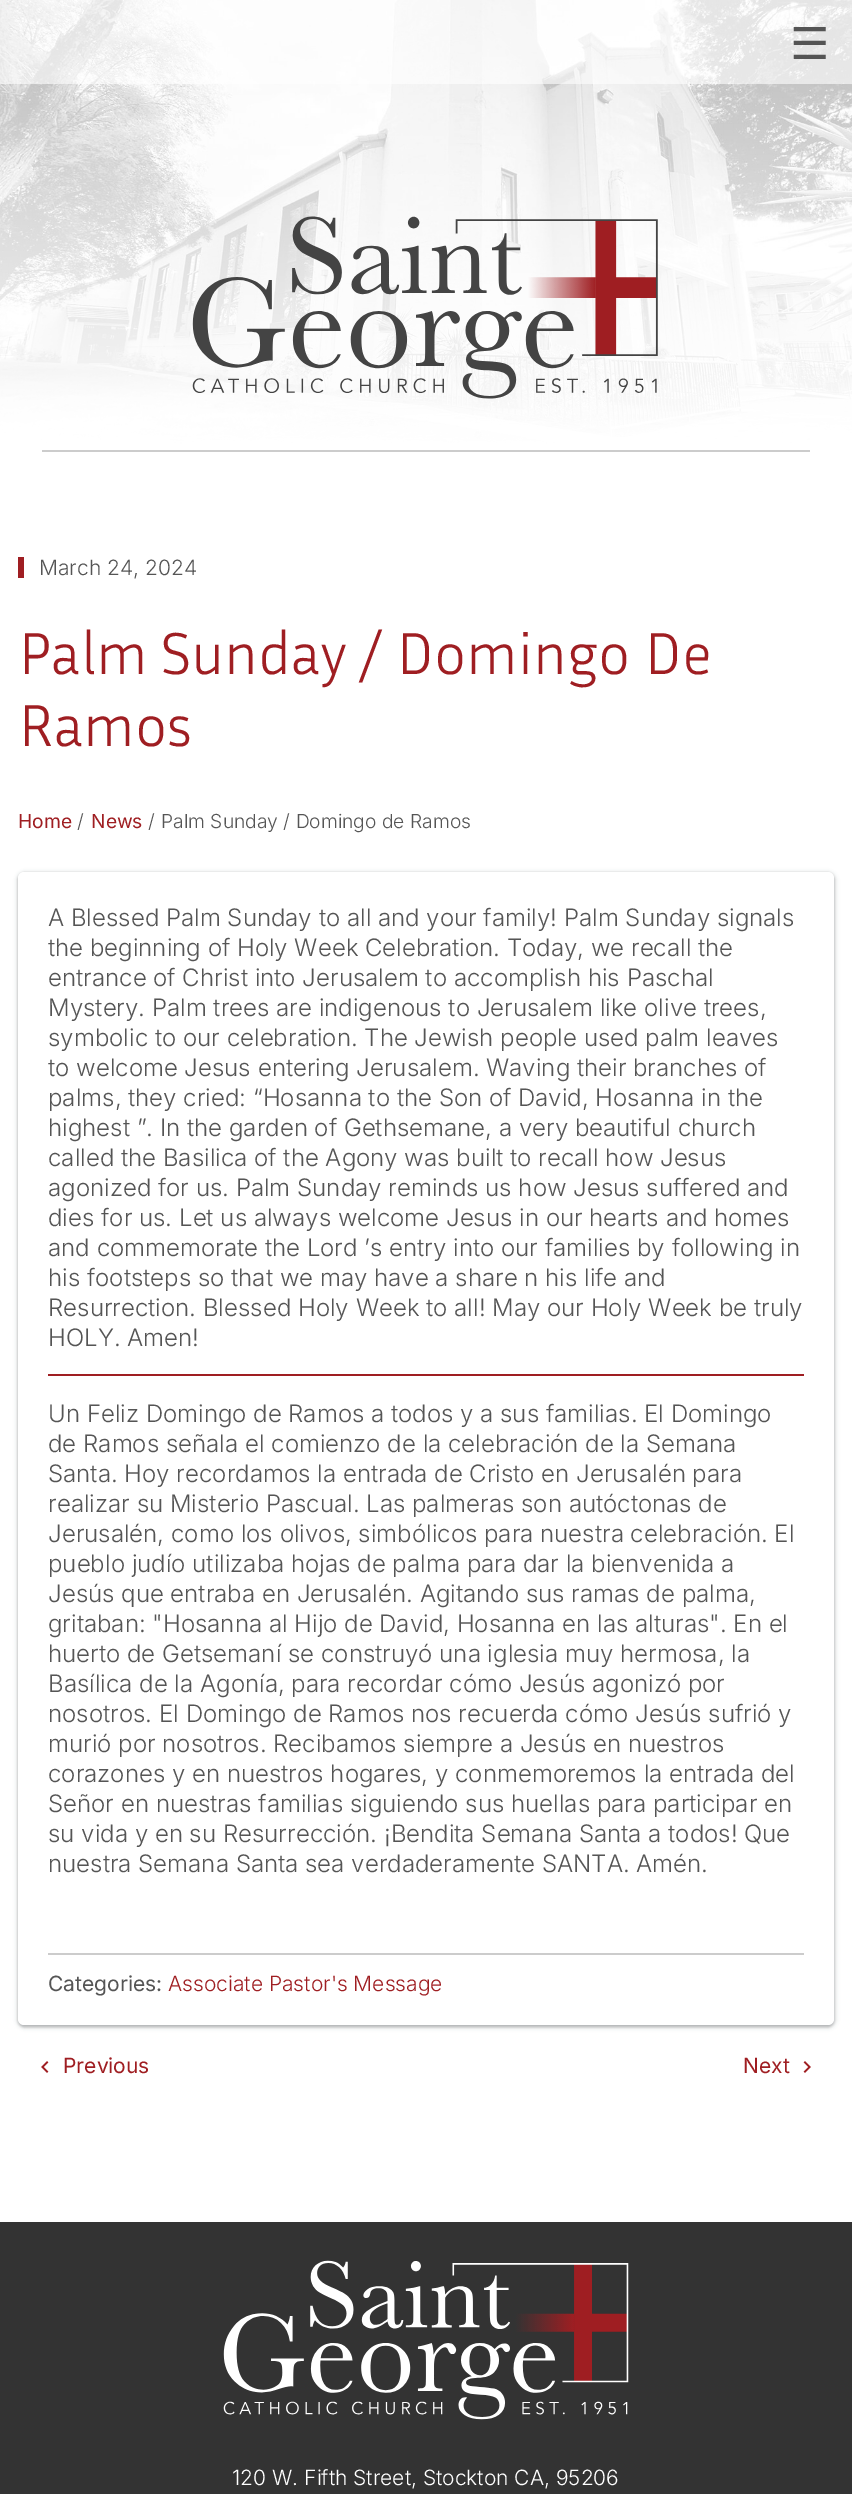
%!PS
<< /PageSize [852 2494] /PageUsesTransparency true >> setpagedevice
/f/fill load def
/C { dup -16 bitshift 255 div exch dup -8 bitshift 255 and 255 div exch 255 and 255 div setrgbcolor } def
/F { [ exch dup neg 0 0 3 -1 roll 0 0 ] selectfont } def
/T { moveto show } def
/R { rectfill } def
/A { dup .setfillconstantalpha .setstrokeconstantalpha } def
/Q { 5 dict begin { /r /h /w /y /x } { exch def } forall
  x r add y moveto x w add y 2 copy h add r arct x w add y h add x 1 index r arct
  x y h add x y r arct x y 2 copy exch w add exch r arct closepath end } def
/S { 12 dict begin { /a /b /q /h /w /y /x } { exch def } forall gsave /was 0 def
  9 -2 -9 { dup b mul 4 div /e exch def 1 sub .425 mul 2.718 exch exp 1 add a .99 .min exch div /now exch def
    1 1 now sub 1 was sub div sub A /was now def
    w h .min e 2 mul add 0 gt { x e sub y e sub w e 2 mul add h e 2 mul add
      q e add b .6 mul add w h .min 2 div e add .min 0 .max Q fill } if } for grestore end } def
/I { 5 dict begin { /h /w /y /x /name } { exch def } forall
  gsave x y translate w h scale
  w h 8 [w 0 0 h 0 0] name (r) file false 3 colorimage grestore end } def
0 .pushpdf14devicefilter
0 2494 translate 1 -1 scale
4 setmiterlimit
16#FFFFFF C
0 0 852 2494 R
(1.rgb) 0 0 852 450 I
0.6 A
0 0 852 84 R
/DejaVuSans-Regular 44 F
1 A
16#555555 C
(☰) 790 59 T
(2.rgb) 192 216 466 183 I
16#CCCCCC C
42 450 768 2 R
16#9F1E22 C
18 557 6 21 R
/Inter-Light 21 F
16#555555 C
(March 24, 2024) 39 575 T
/InriaSans-Light 60 F
16#9F1E22 C
(Palm Sunday / Domingo De) 18 674 T
(Ramos) 18 746 T
/Inter-Regular 19.25 F
(Home) 18 828 T
/Inter-Light 19.25 F
16#555555 C
(/) 77 828 T
/Inter-Regular 19.25 F
16#9F1E22 C
(News) 91 828 T
/Inter-Light 19.25 F
16#555555 C
(/) 148 828 T
(Palm Sunday / Domingo de Ramos) 161 828 T
16#3C4043 C
17 872 819 1156 8 2 .15 S
18 873 816 1154 6 1.5 .3 S
16#FFFFFF C
18 872 816 1153 6 Q f
/Inter-Light 24 F
16#555555 C
(A Blessed Palm Sunday to all and your family! Palm Sunday signals) 48 926 T
(the beginning of Holy Week Celebration. Today, we recall the) 48 956 T
(entrance of Christ into Jerusalem to accomplish his Paschal) 48 986 T
(Mystery. Palm trees are indigenous to Jerusalem like olive trees,) 48 1016 T
(symbolic to our celebration. The Jewish people used palm leaves) 48 1046 T
(to welcome Jesus entering Jerusalem. Waving their branches of) 48 1076 T
(palms, they cried: “Hosanna to the Son of David, Hosanna in the) 48 1106 T
(highest ”. In the garden of Gethsemane, a very beautiful church) 48 1136 T
(called the Basilica of the Agony was built to recall how Jesus) 48 1166 T
(agonized for us. Palm Sunday reminds us how Jesus suffered and) 48 1196 T
(dies for us. Let us always welcome Jesus in our hearts and homes) 48 1226 T
(and commemorate the Lord ’s entry into our families by following in) 48 1256 T
(his footsteps so that we may have a share n his life and) 48 1286 T
(Resurrection. Blessed Holy Week to all! May our Holy Week be truly) 48 1316 T
(HOLY. Amen!) 48 1346 T
16#9F1E22 C
48 1374 756 2 R
16#555555 C
(Un Feliz Domingo de Ramos a todos y a sus familias. El Domingo) 48 1422 T
(de Ramos señala el comienzo de la celebración de la Semana) 48 1452 T
(Santa. Hoy recordamos la entrada de Cristo en Jerusalén para) 48 1482 T
(realizar su Misterio Pascual. Las palmeras son autóctonas de) 48 1512 T
(Jerusalén, como los olivos, simbólicos para nuestra celebración. El) 48 1542 T
(pueblo judío utilizaba hojas de palma para dar la bienvenida a) 48 1572 T
(Jesús que entraba en Jerusalén. Agitando sus ramas de palma,) 48 1602 T
(gritaban: "Hosanna al Hijo de David, Hosanna en las alturas". En el) 48 1632 T
(huerto de Getsemaní se construyó una iglesia muy hermosa, la) 48 1662 T
(Basílica de la Agonía, para recordar cómo Jesús agonizó por) 48 1692 T
(nosotros. El Domingo de Ramos nos recuerda cómo Jesús sufrió y) 48 1722 T
(murió por nosotros. Recibamos siempre a Jesús en nuestros) 48 1752 T
(corazones y en nuestros hogares, y conmemoremos la entrada del) 48 1782 T
(Señor en nuestras familias siguiendo sus huellas para participar en) 48 1812 T
(su vida y en su Resurrección. ¡Bendita Semana Santa a todos! Que) 48 1842 T
(nuestra Semana Santa sea verdaderamente SANTA. Amén.) 48 1872 T
16#CCCCCC C
48 1953 756 2 R
/Inter-Regular 21 F
16#555555 C
(Categories:) 48 1991 T
/Inter-Light 21 F
16#9F1E22 C
(Associate Pastor's Message) 168 1991 T
(3.rgb) 41 2061 8 12 I
/Inter-Regular 21 F
(Previous) 63 2073 T
(Next) 743 2073 T
(4.rgb) 803 2061 8 12 I
16#333333 C
0 2222 852 272 R
(5.rgb) 223 2260 406 160 I
/Inter-Light 21 F
16#FFFFFF C
(120 W. Fifth Street, Stockton CA, 95206) 232 2485 T
.poppdf14devicefilter showpage
